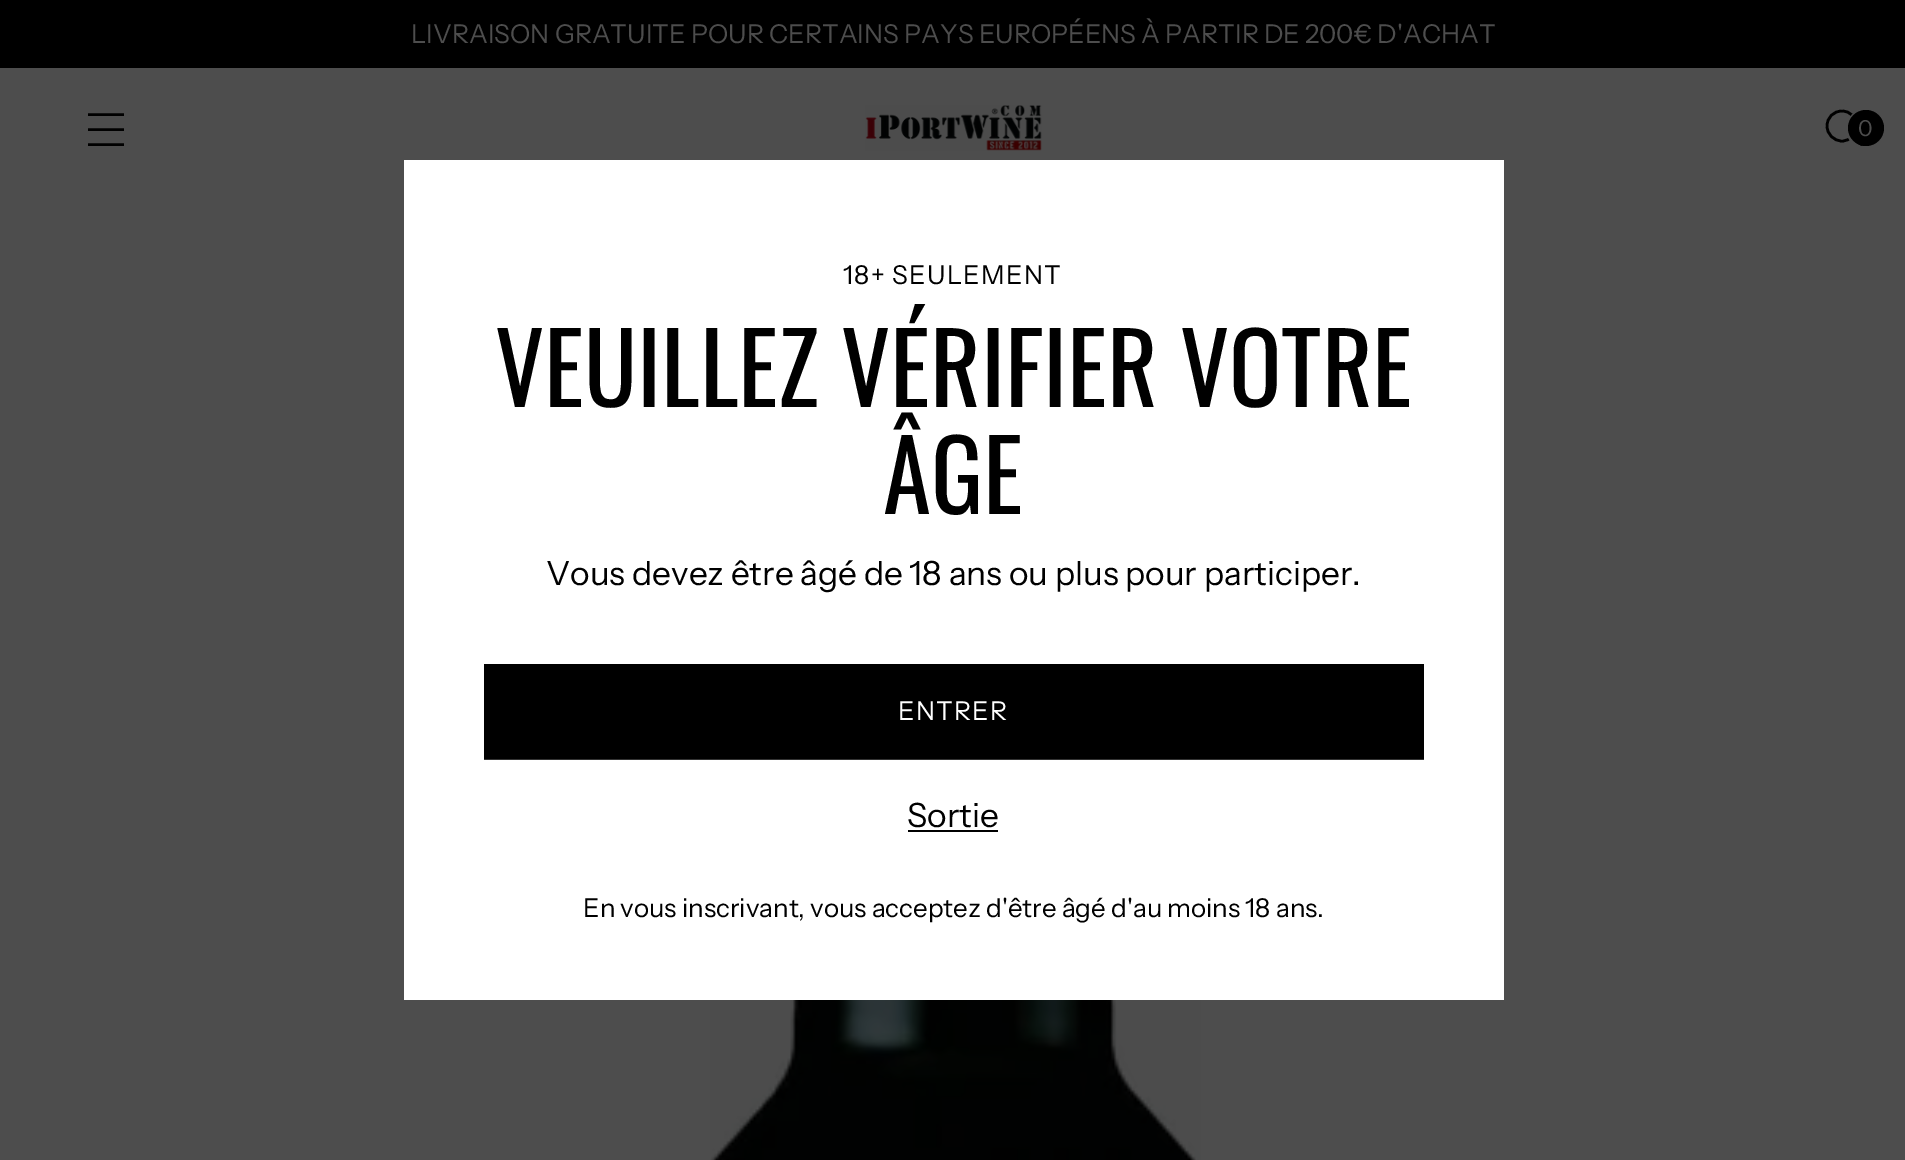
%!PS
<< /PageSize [1905 1160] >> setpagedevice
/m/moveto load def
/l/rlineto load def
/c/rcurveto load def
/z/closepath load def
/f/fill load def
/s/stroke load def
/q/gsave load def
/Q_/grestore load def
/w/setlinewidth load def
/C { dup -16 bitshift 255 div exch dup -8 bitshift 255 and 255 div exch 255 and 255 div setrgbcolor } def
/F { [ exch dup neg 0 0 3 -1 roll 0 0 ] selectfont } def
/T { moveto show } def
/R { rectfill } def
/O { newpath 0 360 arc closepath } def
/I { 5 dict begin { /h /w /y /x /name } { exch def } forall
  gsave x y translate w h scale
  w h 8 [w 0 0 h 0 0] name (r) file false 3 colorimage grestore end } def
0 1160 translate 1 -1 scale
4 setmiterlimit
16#4D4D4D C
0 0 1905 1160 R
16#000000 C
0 0 1905 68 R
/InstrumentSans-Regular 25.95 F
16#4D4D4D C
(LIVRAISON GRATUITE POUR CERTAINS PAYS EUROPÉENS À PARTIR DE 200€ D'ACHAT) 411 43 T
16#000000 C
2.6 w
88 129.5 m 36 0 l 88 114.5 m 36 0 l 88 144.5 m 36 0 l s
(1.rgb) 865 105 177 46 I
1 setlinecap
1842 141 m 8 0 15 -7 15 -15 c 0 -8.5 -7 -15 -15 -15 c -8.5 0 -15 6.5 -15 15 c 0 8 6.5 15 15 15 c z s
0 setlinecap
1852.5 136.5 m 9.5 9.5 l s
16#4D4D4D C
3 w
1867 129 19.5 O s
16#000000 C
1866 128 18 O f
/InstrumentSans-Regular 22 F
16#4D4D4D C
(0) 1858 136 T
16#FFFFFF C
404 160 1100 840 R
/InstrumentSans-Regular 25.95 F
16#000000 C
843 284 m 1.25 0 (18+ SEULEMENT) ashow
/Oswald-Regular 97.5 F
(VEUILLEZ VÉRIFIER VOTRE) 495 407 T
(ÂGE) 883 514 T
/InstrumentSans-Regular 33.4 F
(Vous devez être âgé de 18 ans ou plus pour participer.) 546 585 T
q
484 664 940 96 rectclip
314 663 m 1222 0 l 56 96 l -1222 0 l z f
Q_
/InstrumentSans-Regular 25.95 F
16#FFFFFF C
898 720 m 1.25 0 (ENTRER) ashow
16#333333 C
484 759 940 1 R
/InstrumentSans-Regular 33.4 F
16#000000 C
(Sortie) 907 827 T
908 830 90 2 R
/InstrumentSans-Regular 25.95 F
(En vous inscrivant, vous acceptez d'être âgé d'au moins 18 ans.) 583 917 T
(2.rgb) 710 1000 491 160 I
showpage
